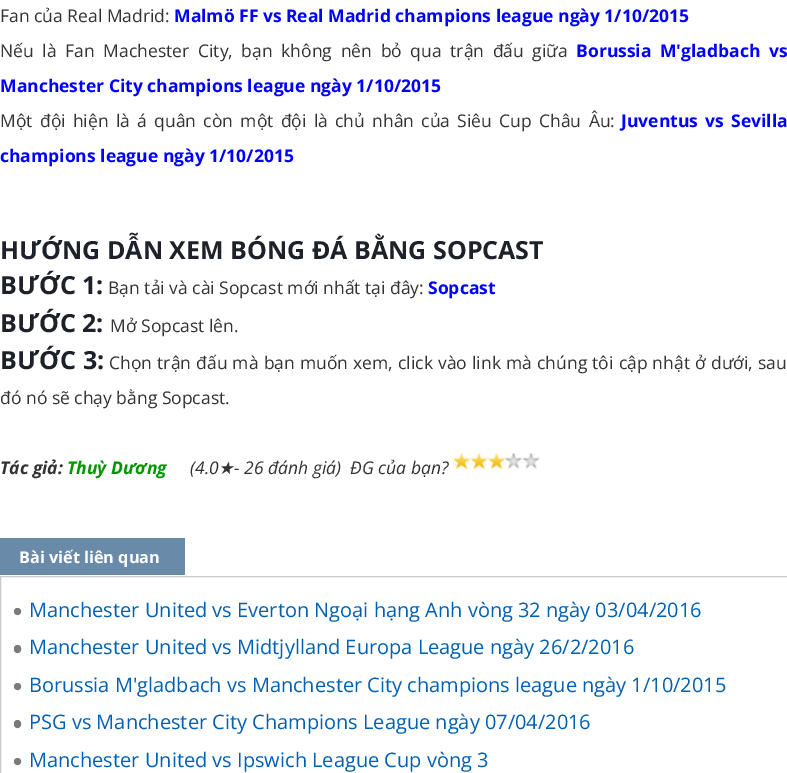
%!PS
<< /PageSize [787 773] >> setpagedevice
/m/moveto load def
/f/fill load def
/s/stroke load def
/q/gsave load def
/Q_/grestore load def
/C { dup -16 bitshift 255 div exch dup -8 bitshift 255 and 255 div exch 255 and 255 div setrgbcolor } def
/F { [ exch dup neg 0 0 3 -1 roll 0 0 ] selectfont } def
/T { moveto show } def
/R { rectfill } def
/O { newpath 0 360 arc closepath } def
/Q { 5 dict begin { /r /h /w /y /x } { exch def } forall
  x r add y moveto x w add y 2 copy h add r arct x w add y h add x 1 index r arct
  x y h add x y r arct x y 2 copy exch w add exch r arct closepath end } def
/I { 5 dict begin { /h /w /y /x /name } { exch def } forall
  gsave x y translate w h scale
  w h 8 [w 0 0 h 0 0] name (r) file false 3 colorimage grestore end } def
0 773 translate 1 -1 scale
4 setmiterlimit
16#FFFFFF C
0 0 787 773 R
/OpenSans-Regular 17.5 F
16#333333 C
(Fan của Real Madrid:) 0 22 T
/OpenSans-Bold 17.5 F
16#0000FF C
(Malmö FF vs Real Madrid champions league ngày 1/10/2015) 174 22 T
/OpenSans-Regular 17.5 F
16#333333 C
0 57 m 4.1 0 32 (Nếu là Fan Machester City, bạn không nên bỏ qua trận đấu giữa) widthshow
/OpenSans-Bold 17.5 F
16#0000FF C
576 57 m 4.1 0 32 (Borussia M'gladbach vs) widthshow
(Manchester City champions league ngày 1/10/2015) 0 92 T
/OpenSans-Regular 17.5 F
16#333333 C
0 127 m 2.75 0 32 (Một đội hiện là á quân còn một đội là chủ nhân của Siêu Cup Châu Âu:) widthshow
/OpenSans-Bold 17.5 F
16#0000FF C
621 127 m 2.75 0 32 (Juventus vs Sevilla) widthshow
(champions league ngày 1/10/2015) 0 162 T
/OpenSans-Bold 25 F
16#1D2129 C
(HƯỚNG DẪN XEM BÓNG ĐÁ BẰNG SOPCAST) 0 259 T
(BƯỚC 1:) 0 294 T
/OpenSans-Regular 17.5 F
16#333333 C
(Bạn tải và cài Sopcast mới nhất tại đây:) 108 294 T
/OpenSans-Bold 17.5 F
16#0000FF C
(Sopcast) 428 294 T
/OpenSans-Bold 25 F
16#1D2129 C
(BƯỚC 2:) 0 332 T
/OpenSans-Regular 17.5 F
16#333333 C
(Mở Sopcast lên.) 110 332 T
/OpenSans-Bold 25 F
16#1D2129 C
0 369 m 1 0 32 (BƯỚC 3:) widthshow
/OpenSans-Regular 17.5 F
16#333333 C
109 369 m .6 0 32 (Chọn trận đấu mà bạn muốn xem, click vào link mà chúng tôi cập nhật ở dưới, sau) widthshow
(đó nó sẽ chạy bằng Sopcast.) 0 404 T
/OpenSans-BoldItalic 17.5 F
(Tác giả:) 0 474 T
16#009600 C
(Thuỳ Dương) 67 474 T
/OpenSans-Italic 17.5 F
16#333333 C
(\(4.0) 190 474 T
/DejaVuSans-Italic 17.5 F
(★) 218 474 T
/OpenSans-Italic 17.5 F
(- 26 đánh giá\)) 234 474 T
(ĐG của bạn?) 350 474 T
(1.rgb) 452 453 18 17 I
(2.rgb) 470 453 18 17 I
(3.rgb) 488 453 17 17 I
(4.rgb) 505 453 18 17 I
(5.rgb) 522 453 18 17 I
16#698BA9 C
0 538 185 37 R
/OpenSans-Bold 16.25 F
16#FFFFFF C
(Bài viết liên quan) 19 563 T
16#C9C9C9 C
.5 576.5 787 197 rectstroke
16#7B7B7B C
17.5 611.5 3 O q f Q_
s
/OpenSans-Regular 20 F
16#0060B3 C
(Manchester United vs Everton Ngoại hạng Anh vòng 32 ngày 03/04/2016) 29 617 T
16#7B7B7B C
14.5 645.5 6 7 3 Q q f Q_
s
16#0060B3 C
(Manchester United vs Midtjylland Europa League ngày 26/2/2016) 29 654 T
16#7B7B7B C
17.5 686.5 3 O q f Q_
s
16#0060B3 C
(Borussia M'gladbach vs Manchester City champions league ngày 1/10/2015) 29 692 T
16#7B7B7B C
14.5 720.5 6 7 3 Q q f Q_
s
16#0060B3 C
(PSG vs Manchester City Champions League ngày 07/04/2016) 29 729 T
16#7B7B7B C
17.5 761.5 3 O q f Q_
s
16#0060B3 C
(Manchester United vs Ipswich League Cup vòng 3) 29 767 T
showpage
